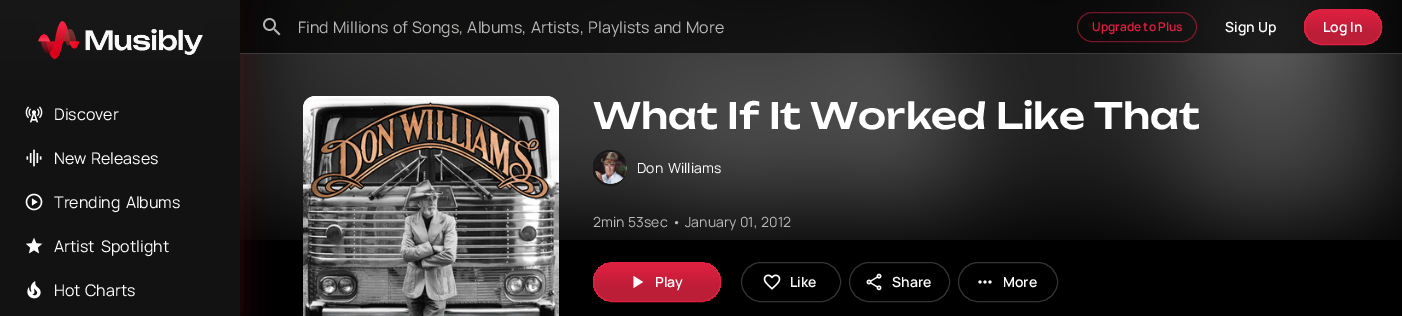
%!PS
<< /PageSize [1402 316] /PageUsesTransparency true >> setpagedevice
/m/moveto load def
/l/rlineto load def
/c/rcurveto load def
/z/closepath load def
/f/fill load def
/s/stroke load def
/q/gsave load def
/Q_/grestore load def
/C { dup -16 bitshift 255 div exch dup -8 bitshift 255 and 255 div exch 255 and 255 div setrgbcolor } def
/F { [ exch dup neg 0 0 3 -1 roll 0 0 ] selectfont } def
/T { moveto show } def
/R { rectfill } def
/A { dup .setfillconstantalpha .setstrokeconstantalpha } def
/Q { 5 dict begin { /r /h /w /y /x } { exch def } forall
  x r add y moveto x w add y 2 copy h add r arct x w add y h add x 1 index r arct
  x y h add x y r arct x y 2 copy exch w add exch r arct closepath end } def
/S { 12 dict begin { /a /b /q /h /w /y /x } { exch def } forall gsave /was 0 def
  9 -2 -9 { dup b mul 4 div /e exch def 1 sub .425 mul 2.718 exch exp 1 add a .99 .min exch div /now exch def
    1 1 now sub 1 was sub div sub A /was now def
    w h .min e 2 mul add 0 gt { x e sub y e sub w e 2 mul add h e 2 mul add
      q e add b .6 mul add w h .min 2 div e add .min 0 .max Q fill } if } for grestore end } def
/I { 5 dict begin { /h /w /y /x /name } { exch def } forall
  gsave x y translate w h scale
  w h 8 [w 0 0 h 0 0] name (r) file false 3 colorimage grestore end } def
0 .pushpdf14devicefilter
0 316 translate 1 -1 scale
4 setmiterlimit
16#000000 C
0 0 1402 316 R
(8.rgb) 240 0 1162 240 I
16#E02041 C
0 0 240 316 0 15 .2 S
0.7 A
16#000000 C
240 0 1162 54 R
0.2 A
16#FFFFFF C
240 53 1162 1 R
1 A
(1.rgb) 263 18 18 18 I
/Manrope-Regular 16 F
16#BABABA C
298 33 m 1 0 32 (Find Millions of Songs, Albums, Artists, Playlists and More) widthshow
0.5 A
16#E02041 C
1077.5 12.5 119 29 14.5 Q s
/Manrope-SemiBold 12 F
1 A
(Upgrade to Plus) 1092 31 T
/Manrope-SemiBold 14 F
16#FFFFFF C
(Sign Up) 1225 32 T
q
1304 9 78 36 18 Q clip newpath
q 1304 10 m 78 0 l 0 34 l -78 0 l z clip newpath
<< /ShadingType 2 /ColorSpace /DeviceRGB /Coords [1343 44 1343 10] /Extend [true true] /Function << /FunctionType 3 /Domain [0 1] /Functions [<< /FunctionType 2 /Domain [0 1] /C0 [.737 .114 .216] /C1 [.737 .114 .216] /N 1 >> << /FunctionType 2 /Domain [0 1] /C0 [.737 .114 .216] /C1 [.878 .125 .255] /N 1 >>] /Bounds [.3] /Encode [0 1 0 1] >> >> shfill Q_
Q_
16#E02041 C
1304.5 9.5 77 35 17.5 Q s
16#FFFFFF C
(Log In) 1323 32 T
q 0 0 m 240 0 l 0 316 l -240 0 l z clip newpath
<< /ShadingType 2 /ColorSpace /DeviceRGB /Coords [120 316 120 0] /Extend [true true] /Function << /FunctionType 3 /Domain [0 1] /Functions [<< /FunctionType 2 /Domain [0 1] /C0 [.071 .071 .071] /C1 [.071 .071 .071] /N 1 >> << /FunctionType 2 /Domain [0 1] /C0 [.071 .071 .071] /C1 [.094 .094 .094] /N 1 >>] /Bounds [.6] /Encode [0 1 0 1] >> >> shfill Q_
(2.rgb) 38 21 165 39 I
(3.rgb) 25 106 18 17 I
/Manrope-Regular 16 F
(Discover) 54 120 T
(4.rgb) 26 149 16 18 I
54 164 m 1 0 32 (New Releases) widthshow
(5.rgb) 25 193 18 18 I
54 208 m 2 0 32 (Trending Albums) widthshow
(6.rgb) 25 237 18 17 I
54 252 m 3 0 32 (Artist Spotlight) widthshow
(7.rgb) 27 281 14 18 I
54 296 m 1 0 32 (Hot Charts) widthshow
(9.rgb) 303 96 256 220 I
(10.rgb) 303 96 256 12 I
/Unbounded-Medium 36 F
(What If It Worked Like That) 593 129 T
q
593 150 34 36 17 Q clip newpath
0.7 A
q 593 152 m 34 0 l 0 32 l -34 0 l z clip newpath
<< /ShadingType 2 /ColorSpace /DeviceRGB /Coords [611 184 611 152] /Extend [true true] /Function << /FunctionType 3 /Domain [0 1] /Functions [<< /FunctionType 2 /Domain [0 1] /C0 [.098 .098 .098] /C1 [.098 .098 .098] /N 1 >> << /FunctionType 2 /Domain [0 1] /C0 [.098 .098 .098] /C1 [.133 .133 .133] /N 1 >>] /Bounds [.6] /Encode [0 1 0 1] >> >> shfill Q_
Q_
16#191919 C
610 150 m 22.5 0 22.5 36 0 36 c -22.5 0 -22.5 -36 0 -36 c z 610 152 m 22.5 0 22.5 32 0 32 c -20 0 -20 -32 0 -32 c z eofill
(11.rgb) 595 152 32 32 I
(12.rgb) 595 152 32 32 I
/Manrope-Regular 14 F
16#FFFFFF C
637 173 m 2 0 32 (Don Williams) widthshow
16#BABABA C
593 227 m 1 0 32 (2min 53sec) widthshow
(•) 672 227 T
685 227 m 1 0 32 (January 01, 2012) widthshow
q
593 262 128 40 20 Q clip newpath
q 593 263 m 128 0 l 0 38 l -128 0 l z clip newpath
<< /ShadingType 2 /ColorSpace /DeviceRGB /Coords [657 301 657 263] /Extend [true true] /Function << /FunctionType 3 /Domain [0 1] /Functions [<< /FunctionType 2 /Domain [0 1] /C0 [.737 .114 .216] /C1 [.737 .114 .216] /N 1 >> << /FunctionType 2 /Domain [0 1] /C0 [.737 .114 .216] /C1 [.878 .125 .255] /N 1 >>] /Bounds [.3] /Encode [0 1 0 1] >> >> shfill Q_
Q_
16#E02041 C
593.5 262.5 127 39 19.5 Q s
16#FFFFFF C
633.5 288 m 0 -12 l 9.5 6 l z f
/Manrope-SemiBold 14 F
(Play) 655 287 T
16#333333 C
741.5 262.5 99 39 19.5 Q s
(13.rgb) 763 274 18 16 I
16#FFFFFF C
(Like) 790 287 T
16#333333 C
849.5 262.5 100 39 19.5 Q s
(14.rgb) 866 273 16 18 I
16#FFFFFF C
(Share) 892 287 T
16#333333 C
958.5 262.5 99 39 19.5 Q s
(15.rgb) 978 280 14 4 I
16#FFFFFF C
(More) 1003 287 T
.poppdf14devicefilter showpage
